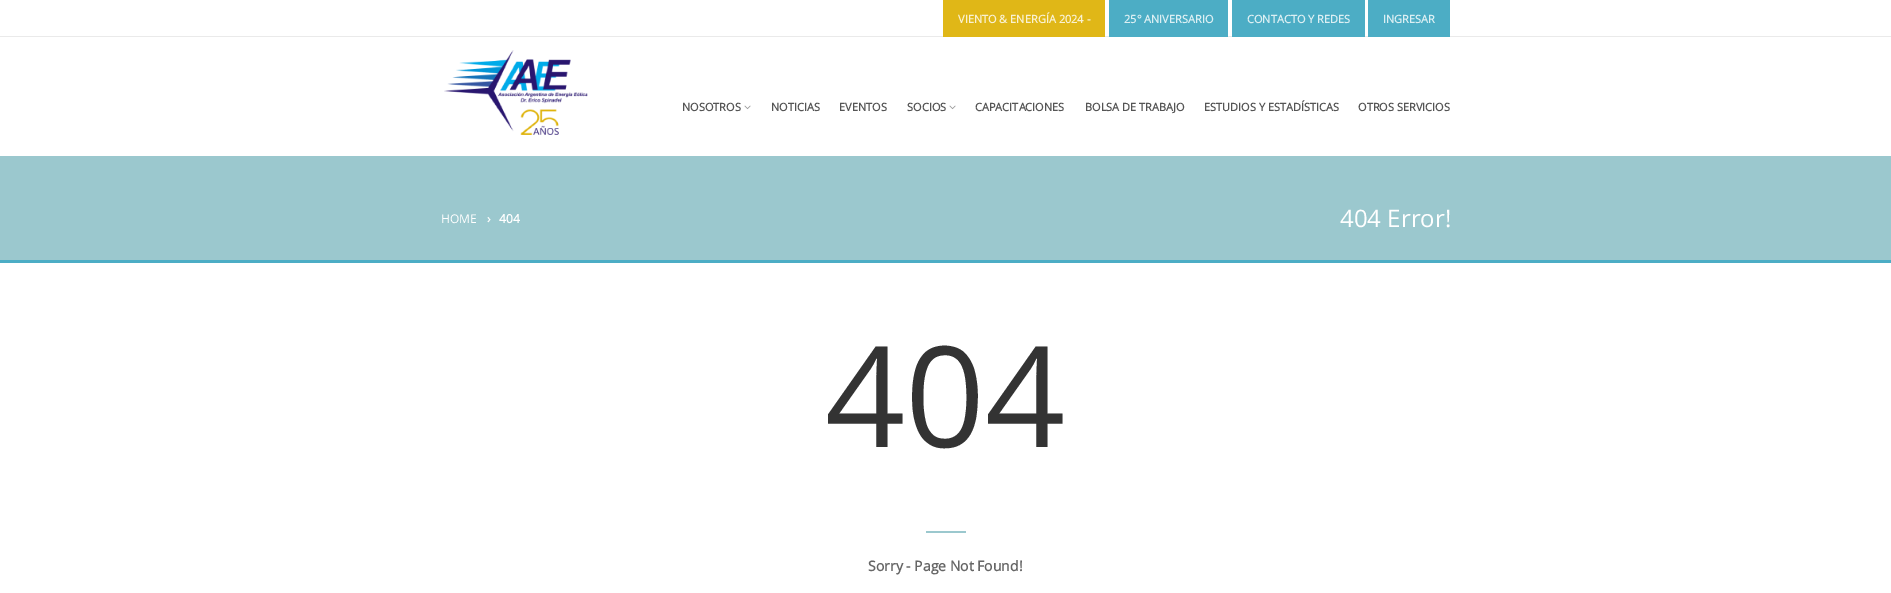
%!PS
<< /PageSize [1891 593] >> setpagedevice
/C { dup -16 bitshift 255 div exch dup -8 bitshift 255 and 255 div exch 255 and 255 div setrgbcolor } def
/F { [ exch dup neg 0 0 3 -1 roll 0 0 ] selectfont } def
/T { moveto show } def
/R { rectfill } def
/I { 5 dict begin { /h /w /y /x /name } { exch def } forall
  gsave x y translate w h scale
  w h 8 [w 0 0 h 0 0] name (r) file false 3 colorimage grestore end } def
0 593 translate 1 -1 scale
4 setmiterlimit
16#FFFFFF C
0 0 1891 593 R
16#EAEAEA C
0 36 1891 1 R
16#E0B717 C
943 0 162 37 R
/OpenSans-Bold 11 F
16#F9F1D1 C
(VIENTO & ENERGÍA 2024 -) 958 23 T
16#4CADC5 C
1109 0 119 37 R
16#DBEFF3 C
(25° ANIVERSARIO) 1124 23 T
16#4CADC5 C
1232 0 133 37 R
16#DBEFF3 C
(CONTACTO Y REDES) 1247 23 T
16#4CADC5 C
1368 0 82 37 R
16#DBEFF3 C
(INGRESAR) 1383 23 T
(1.rgb) 444 50 144 85 I
16#555555 C
(NOSOTROS) 682 111 T
(2.rgb) 744 105 7 5 I
(NOTICIAS) 771 111 T
(EVENTOS) 839 111 T
(SOCIOS) 907 111 T
(2.rgb) 949 105 7 5 I
(CAPACITACIONES) 975 111 T
(BOLSA DE TRABAJO) 1085 111 T
(ESTUDIOS Y ESTADÍSTICAS) 1204 111 T
(OTROS SERVICIOS) 1358 111 T
16#9BC8CE C
0 156 1891 104 R
/OpenSans-Regular 12 F
16#FFFFFF C
(HOME) 441 223 T
/OpenSans-Bold 12 F
(›) 487 223 T
(404) 499 223 T
/OpenSans-Regular 24 F
(404 Error!) 1340 227 T
16#4CADC5 C
0 260 1891 3 R
/OpenSans-Regular 140 F
16#333333 C
(404) 825 447 T
16#9BC8CE C
926 531 40 2 R
/OpenSans-Bold 14 F
16#666666 C
(Sorry - Page Not Found!) 868 571 T
showpage
